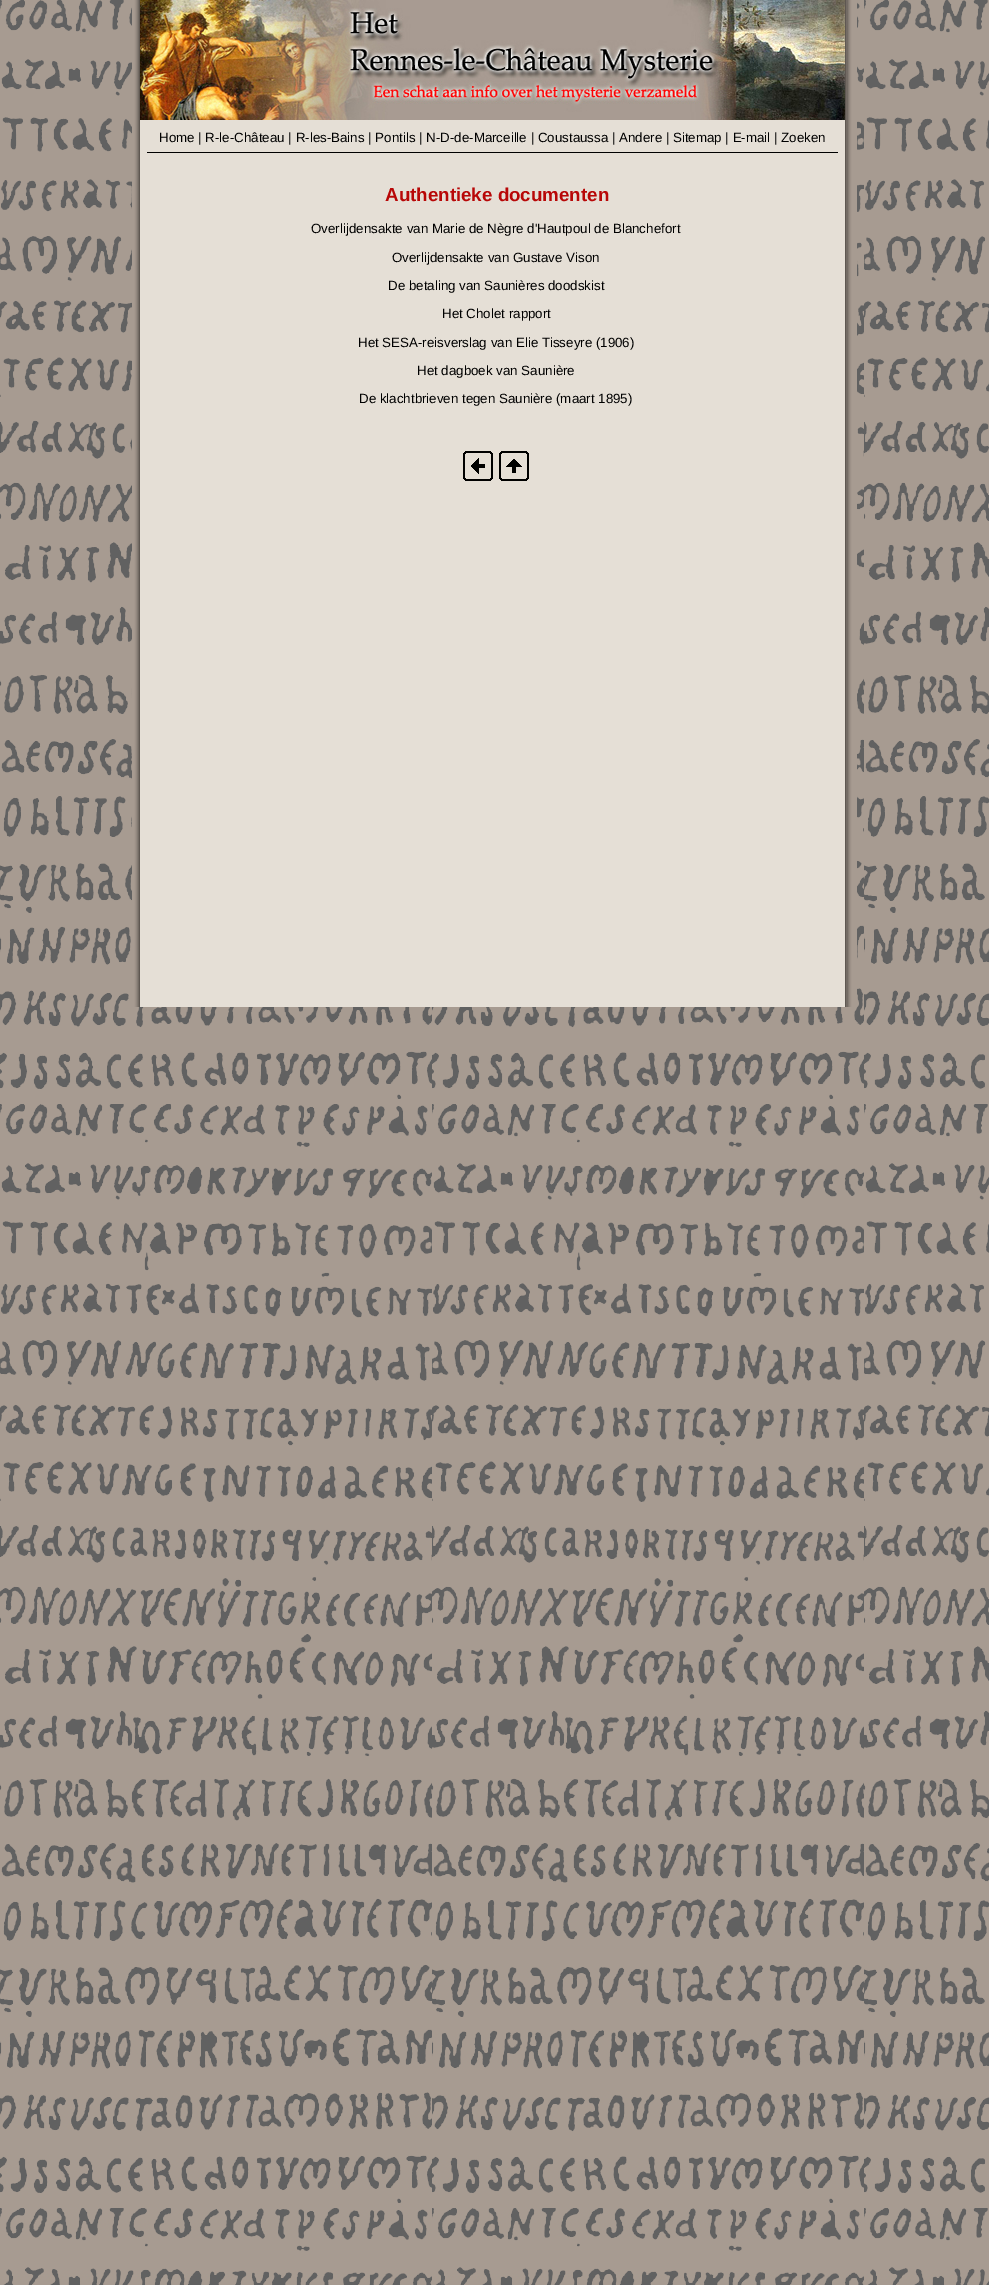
%!PS
<< /PageSize [989 2285] >> setpagedevice
/C { dup -16 bitshift 255 div exch dup -8 bitshift 255 and 255 div exch 255 and 255 div setrgbcolor } def
/F { [ exch dup neg 0 0 3 -1 roll 0 0 ] selectfont } def
/T { moveto show } def
/R { rectfill } def
/I { 5 dict begin { /h /w /y /x /name } { exch def } forall
  gsave x y translate w h scale
  w h 8 [w 0 0 h 0 0] name (r) file false 3 colorimage grestore end } def
0 2285 translate 1 -1 scale
4 setmiterlimit
16#FFFFFF C
0 0 989 2285 R
(1.rgb) 0 0 989 2285 I
16#E5DFD6 C
140 120 705 887 R
(2.rgb) 132 0 725 1007 I
(3.rgb) 140 0 705 120 I
/LiberationSans-Regular 13.33 F
16#000000 C
(Home | R-le-Château | R-les-Bains | Pontils | N-D-de-Marceille | Coustaussa | Andere | Sitemap | E-mail | Zoeken) 159 142 T
147 152 691 1 R
/LiberationSans-Bold 18.75 F
16#B80707 C
(Authentieke documenten) 385 201 T
/LiberationSans-Regular 13.33 F
16#000000 C
(Overlijdensakte van Marie de Nègre d'Hautpoul de Blanchefort) 311 233 T
(Overlijdensakte van Gustave Vison) 392 262 T
(De betaling van Saunières doodskist) 388 290 T
(Het Cholet rapport) 442 318 T
(Het SESA-reisverslag van Elie Tisseyre \(1906\)) 358 347 T
(Het dagboek van Saunière) 417 375 T
(De klachtbrieven tegen Saunière \(maart 1895\)) 359 403 T
(4.rgb) 463 451 30 30 I
(5.rgb) 499 451 30 30 I
showpage
